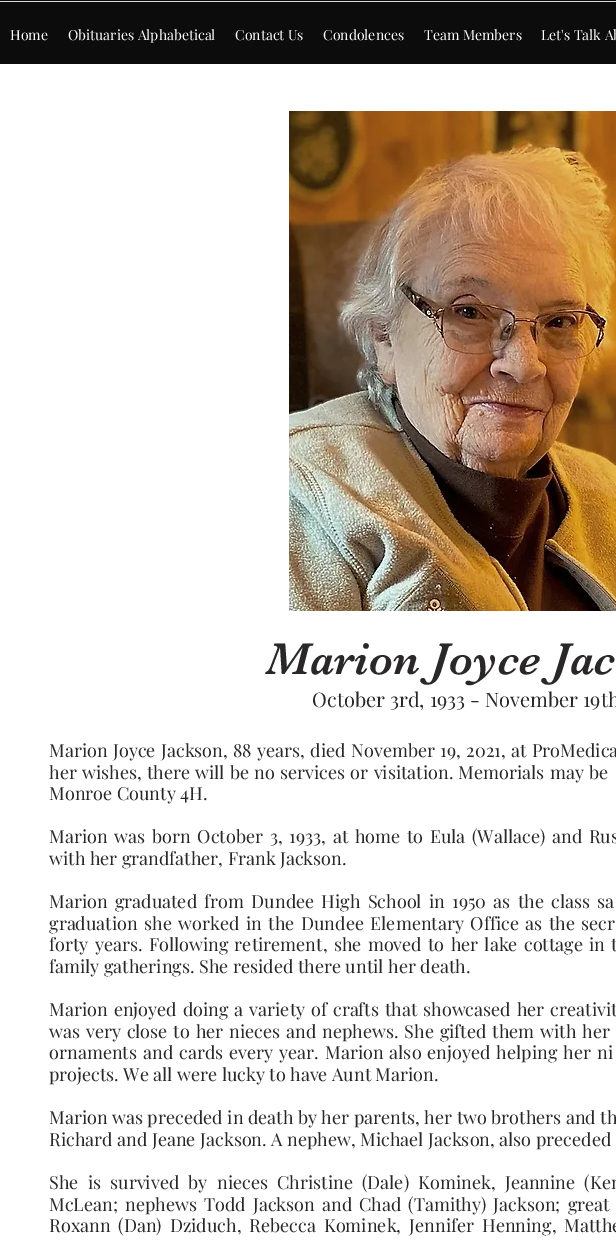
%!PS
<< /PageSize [616 1242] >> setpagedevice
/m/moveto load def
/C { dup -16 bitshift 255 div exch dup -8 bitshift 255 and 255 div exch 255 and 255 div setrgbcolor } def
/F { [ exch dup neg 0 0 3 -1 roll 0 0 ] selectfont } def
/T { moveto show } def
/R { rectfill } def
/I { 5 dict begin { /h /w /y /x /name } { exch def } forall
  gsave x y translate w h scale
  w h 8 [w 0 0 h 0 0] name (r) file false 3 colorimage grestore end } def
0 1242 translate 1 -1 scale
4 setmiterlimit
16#FFFFFF C
0 0 616 1242 R
16#0B0C0B C
0 0 616 64 R
16#DADBDA C
0 1 616 1 R
/PlayfairDisplay-Regular 14 F
16#FFFFFF C
(Home) 10 40 T
(Obituaries Alphabetical) 68 40 T
(Contact Us) 235 40 T
(Condolences) 323 40 T
(Team Members) 424 40 T
(Let's Talk Ab) 541 40 T
(1.rgb) 289 111 327 500 I
/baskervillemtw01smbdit-Regular 46 F
16#292727 C
(Marion Joyce Jac) 266 674 T
/PlayfairDisplay-Regular 20 F
(October 3rd, 1933 - November 19th) 312 707 T
/PlayfairDisplay-Regular 18 F
49 757 m .9 0 32 (Marion Joyce Jackson, 88 years, died November 19, 2021, at ProMedica) widthshow
49 779 m .75 0 32 (her wishes, there will be no services or visitation. Memorials may be) widthshow
(Monroe County 4H.) 49 800 T
49 843 m 2.25 0 32 (Marion was born October 3, 1933, at home to Eula \(Wallace\) and Rus) widthshow
(with her grandfather, Frank Jackson.) 49 865 T
49 908 m 2.75 0 32 (Marion graduated from Dundee High School in 1950 as the class sa) widthshow
49 930 m 2 0 32 (graduation she worked in the Dundee Elementary Office as the secr) widthshow
49 951 m 1.8 0 32 (forty years. Following retirement, she moved to her lake cottage in t) widthshow
(family gatherings. She resided there until her death.) 49 973 T
49 1016 m 1.5 0 32 (Marion enjoyed doing a variety of crafts that showcased her creativit) widthshow
49 1038 m 1.4 0 32 (was very close to her nieces and nephews. She gifted them with her) widthshow
49 1059 m 1.5 0 32 (ornaments and cards every year. Marion also enjoyed helping her ni) widthshow
(projects. We all were lucky to have Aunt Marion.) 49 1081 T
(Marion was preceded in death by her parents, her two brothers and th) 49 1124 T
(Richard and Jeane Jackson. A nephew, Michael Jackson, also preceded) 49 1146 T
49 1189 m 4.75 0 32 (She is survived by nieces Christine \(Dale\) Kominek, Jeannine \(Ken) widthshow
49 1211 m 2.5 0 32 (McLean; nephews Todd Jackson and Chad \(Tamithy\) Jackson; great) widthshow
49 1232 m 3.5 0 32 (Roxann \(Dan\) Dziduch, Rebecca Kominek, Jennifer Henning, Matthe) widthshow
showpage
